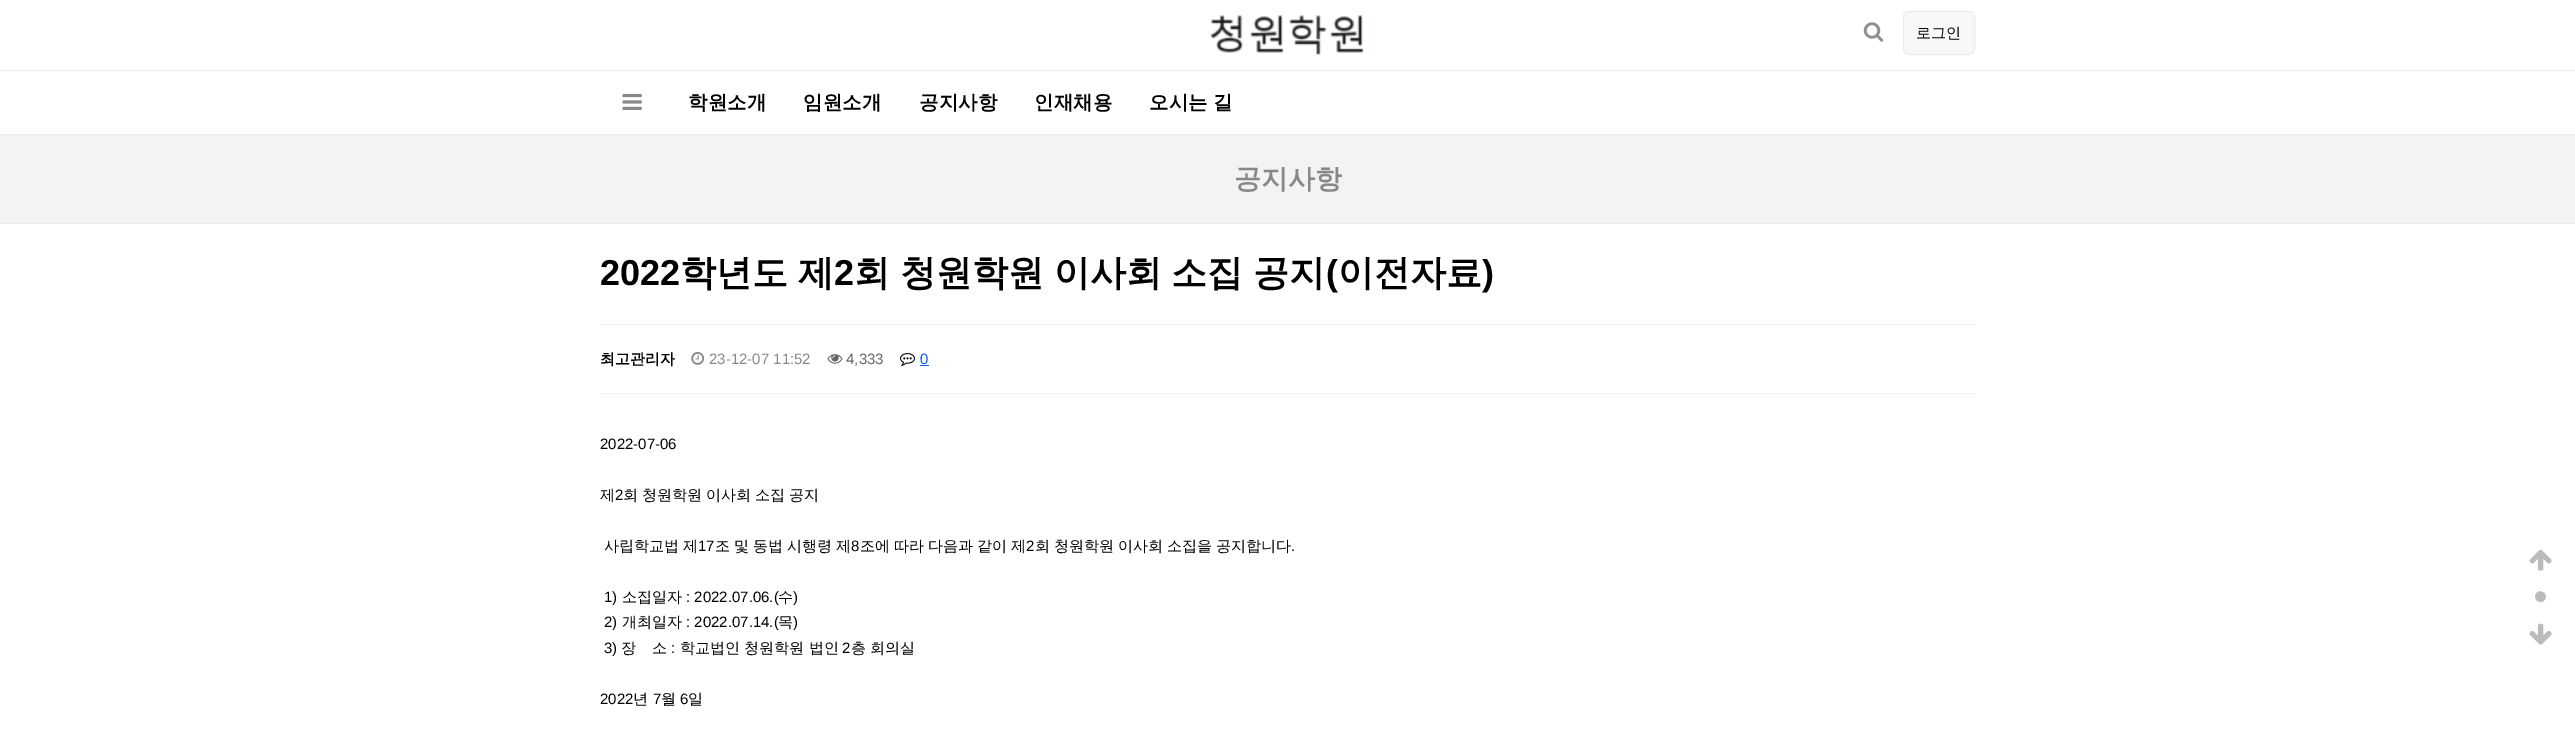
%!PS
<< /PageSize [2575 736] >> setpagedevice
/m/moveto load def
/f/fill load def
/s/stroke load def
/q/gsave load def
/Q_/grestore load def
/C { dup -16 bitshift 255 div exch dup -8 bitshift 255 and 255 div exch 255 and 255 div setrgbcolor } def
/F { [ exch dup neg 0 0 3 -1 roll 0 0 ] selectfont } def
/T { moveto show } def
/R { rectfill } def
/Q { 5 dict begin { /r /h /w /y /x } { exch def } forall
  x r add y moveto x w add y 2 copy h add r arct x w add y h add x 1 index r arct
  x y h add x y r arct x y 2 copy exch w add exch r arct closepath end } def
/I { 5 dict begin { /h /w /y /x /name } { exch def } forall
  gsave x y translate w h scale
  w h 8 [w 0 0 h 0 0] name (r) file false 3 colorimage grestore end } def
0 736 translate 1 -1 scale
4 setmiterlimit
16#FFFFFF C
0 0 2575 736 R
16#EBEBEB C
0 134 2575 1 R
0 70 2575 1 R
(1.rgb) 1210 15 162 41 I
(2.rgb) 1863 22 21 20 I
16#F8F8F8 C
1903.5 11.5 71 43 5.5 Q q f Q_
16#EBEBEB C
s
/WenQuanYiZenHei-Medium 15 F
16#000000 C
(로그인) 1916 38 T
(3.rgb) 622 93 20 17 I
/WenQuanYiZenHei-Bold 19.5 F
(학원소개) 688 109 T
(임원소개) 803 109 T
(공지사항) 919 109 T
(인재채용) 1034 109 T
(오시는 길) 1149 109 T
16#F3F3F3 C
0 135 2575 88 R
16#EBEBEB C
0 223 2575 1 R
/WenQuanYiZenHei-Bold 27 F
16#888888 C
(공지사항) 1234 188 T
/LiberationSans-Bold 36 F
16#000000 C
(2022) 600 285 T
/WenQuanYiZenHei-Bold 36 F
680 285 m -1 0 32 (학년도 제) widthshow
/LiberationSans-Bold 36 F
(2) 834 285 T
/WenQuanYiZenHei-Bold 36 F
854 285 m -1 0 32 (회 청원학원 이사회 소집 공지) widthshow
/LiberationSans-Bold 36 F
(\() 1326 285 T
/WenQuanYiZenHei-Bold 36 F
(이전자료) 1338 285 T
/LiberationSans-Bold 36 F
(\)) 1482 285 T
16#F1F1F1 C
600 324 1375 1 R
600 393 1375 1 R
/WenQuanYiZenHei-Bold 15 F
16#000000 C
(최고관리자) 600 364 T
(4.rgb) 691 352 14 13 I
/LiberationSans-Regular 15 F
16#888888 C
(23-12-07 11:52) 709 364 T
(5.rgb) 827 354 16 10 I
16#666666 C
(4,333) 846 364 T
(6.rgb) 900 353 15 13 I
16#005AFF C
(0) 920 364 T
920 365 9 1 R
16#000000 C
(2022-07-06) 600 449 T
/WenQuanYiZenHei-Medium 15 F
(제) 600 500 T
/LiberationSans-Regular 15 F
(2) 615 500 T
/WenQuanYiZenHei-Medium 15 F
623 500 m -.5 0 32 (회 청원학원 이사회 소집 공지) widthshow
604 551 m -.5 0 32 (사립학교법 제) widthshow
/LiberationSans-Regular 15 F
(17) 698 551 T
/WenQuanYiZenHei-Medium 15 F
715 551 m -.5 0 32 (조 및 동법 시행령 제) widthshow
/LiberationSans-Regular 15 F
(8) 851 551 T
/WenQuanYiZenHei-Medium 15 F
860 551 m -.5 0 32 (조에 따라 다음과 같이 제) widthshow
/LiberationSans-Regular 15 F
(2) 1026 551 T
/WenQuanYiZenHei-Medium 15 F
1035 551 m -.5 0 32 (회 청원학원 이사회 소집을 공지합니다) widthshow
/LiberationSans-Regular 15 F
(.) 1291 551 T
(1\)) 604 602 T
/WenQuanYiZenHei-Medium 15 F
(소집일자) 622 602 T
/LiberationSans-Regular 15 F
(: 2022.07.06.\() 686 602 T
/WenQuanYiZenHei-Medium 15 F
(수) 778 602 T
/LiberationSans-Regular 15 F
(\)) 793 602 T
(2\)) 604 627 T
/WenQuanYiZenHei-Medium 15 F
(개최일자) 622 627 T
/LiberationSans-Regular 15 F
(: 2022.07.14.\() 686 627 T
/WenQuanYiZenHei-Medium 15 F
(목) 778 627 T
/LiberationSans-Regular 15 F
(\)) 793 627 T
(3\)) 604 653 T
/WenQuanYiZenHei-Medium 15 F
(장) 621 653 T
(소) 652 653 T
/LiberationSans-Regular 15 F
(:) 671 653 T
/WenQuanYiZenHei-Medium 15 F
(학교법인 청원학원 법인) 680 653 T
/LiberationSans-Regular 15 F
(2) 842 653 T
/WenQuanYiZenHei-Medium 15 F
(층 회의실) 851 653 T
/LiberationSans-Regular 15 F
(2022) 600 704 T
/WenQuanYiZenHei-Medium 15 F
(년) 633 704 T
/LiberationSans-Regular 15 F
(7) 653 704 T
/WenQuanYiZenHei-Medium 15 F
(월) 661 704 T
/LiberationSans-Regular 15 F
(6) 680 704 T
/WenQuanYiZenHei-Medium 15 F
(일) 688 704 T
(7.rgb) 2529 549 23 22 I
(8.rgb) 2535 591 11 12 I
(9.rgb) 2529 623 23 22 I
showpage
